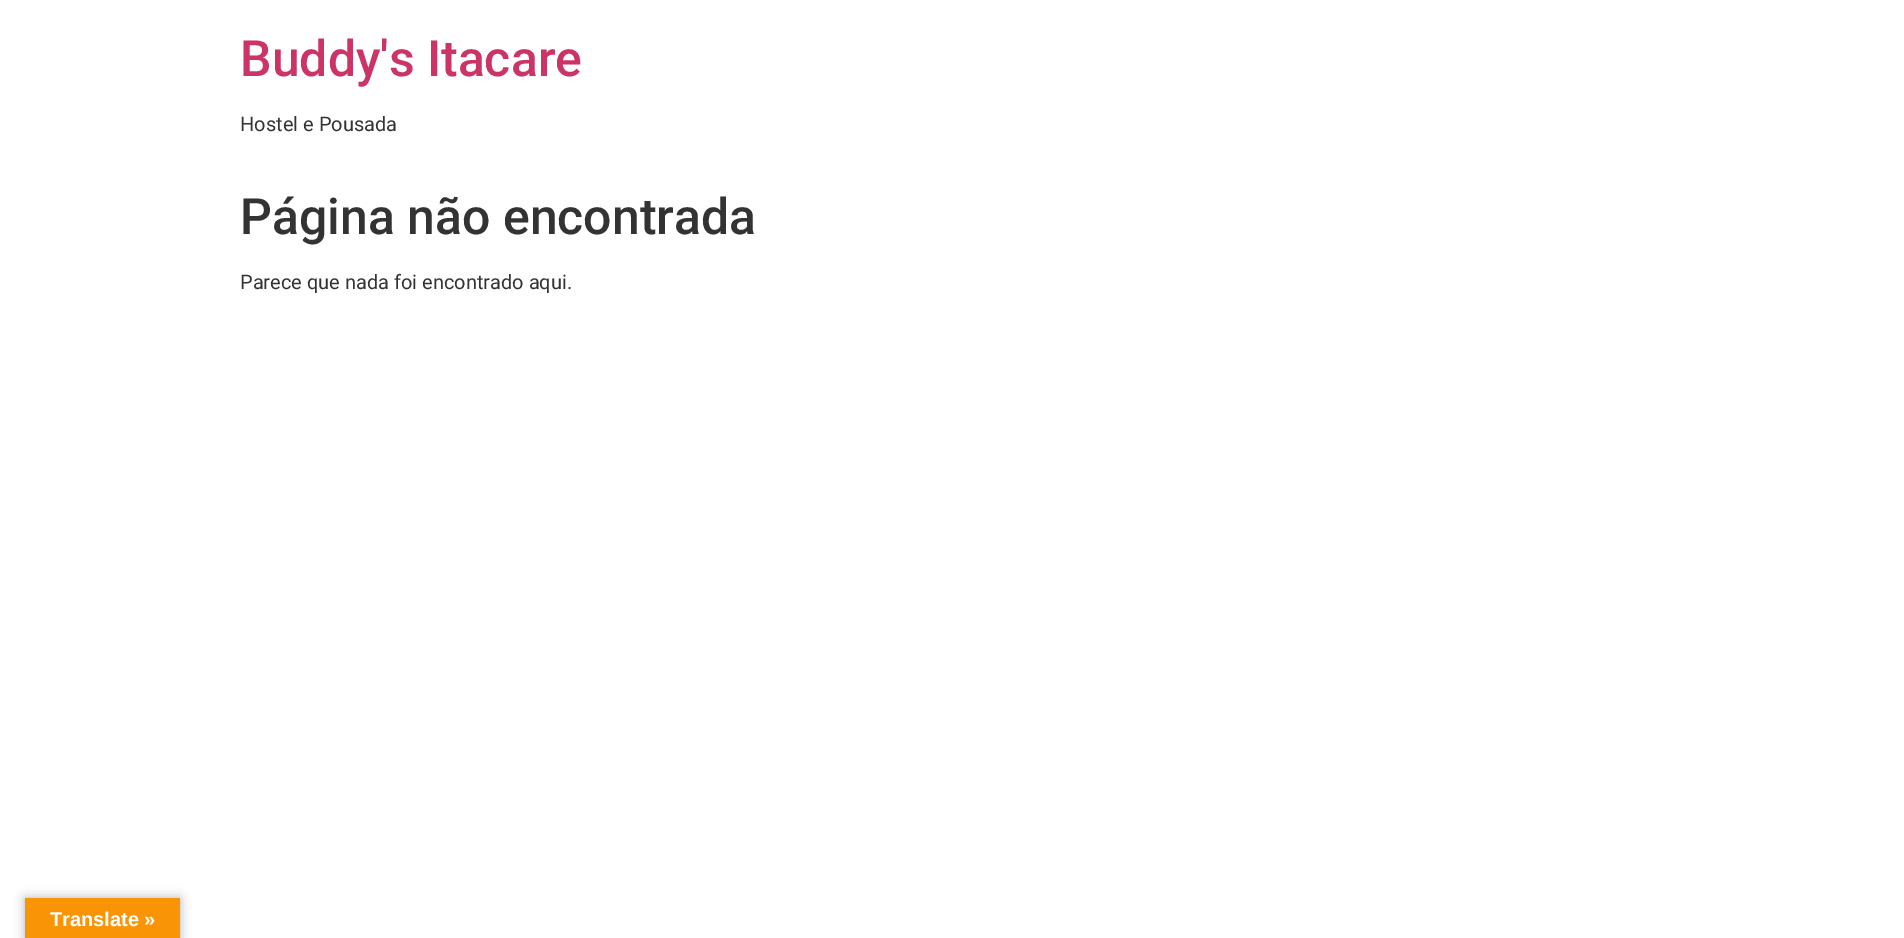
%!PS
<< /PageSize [1904 938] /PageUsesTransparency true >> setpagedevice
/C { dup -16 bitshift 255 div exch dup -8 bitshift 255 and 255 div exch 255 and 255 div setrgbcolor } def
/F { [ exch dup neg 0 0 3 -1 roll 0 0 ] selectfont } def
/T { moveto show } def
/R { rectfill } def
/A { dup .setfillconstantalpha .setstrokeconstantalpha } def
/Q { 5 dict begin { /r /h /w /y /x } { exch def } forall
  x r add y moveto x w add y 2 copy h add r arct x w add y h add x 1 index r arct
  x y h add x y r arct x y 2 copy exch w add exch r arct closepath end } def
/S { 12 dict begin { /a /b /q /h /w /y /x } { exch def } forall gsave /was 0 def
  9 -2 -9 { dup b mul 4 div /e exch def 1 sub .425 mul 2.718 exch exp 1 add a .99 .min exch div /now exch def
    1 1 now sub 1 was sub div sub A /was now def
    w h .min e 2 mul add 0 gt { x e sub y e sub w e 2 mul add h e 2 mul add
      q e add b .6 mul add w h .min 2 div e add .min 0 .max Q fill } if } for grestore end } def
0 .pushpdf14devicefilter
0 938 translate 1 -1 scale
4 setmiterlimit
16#FFFFFF C
0 0 1904 938 R
/Roboto-Medium 50 F
16#CC3366 C
(Buddy's Itacare) 240 76 T
/Roboto-Regular 20 F
16#333333 C
(Hostel e Pousada) 240 131 T
/Roboto-Medium 50 F
(Página não encontrada) 240 234 T
/Roboto-Regular 20 F
(Parece que nada foi encontrado aqui.) 240 289 T
16#000000 C
25 898 155 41 0 5.5 .3 S
16#F89406 C
25 898 155 40 R
/LiberationSans-Bold 20 F
16#FFFFFF C
(Translate ») 50 926 T
.poppdf14devicefilter showpage
